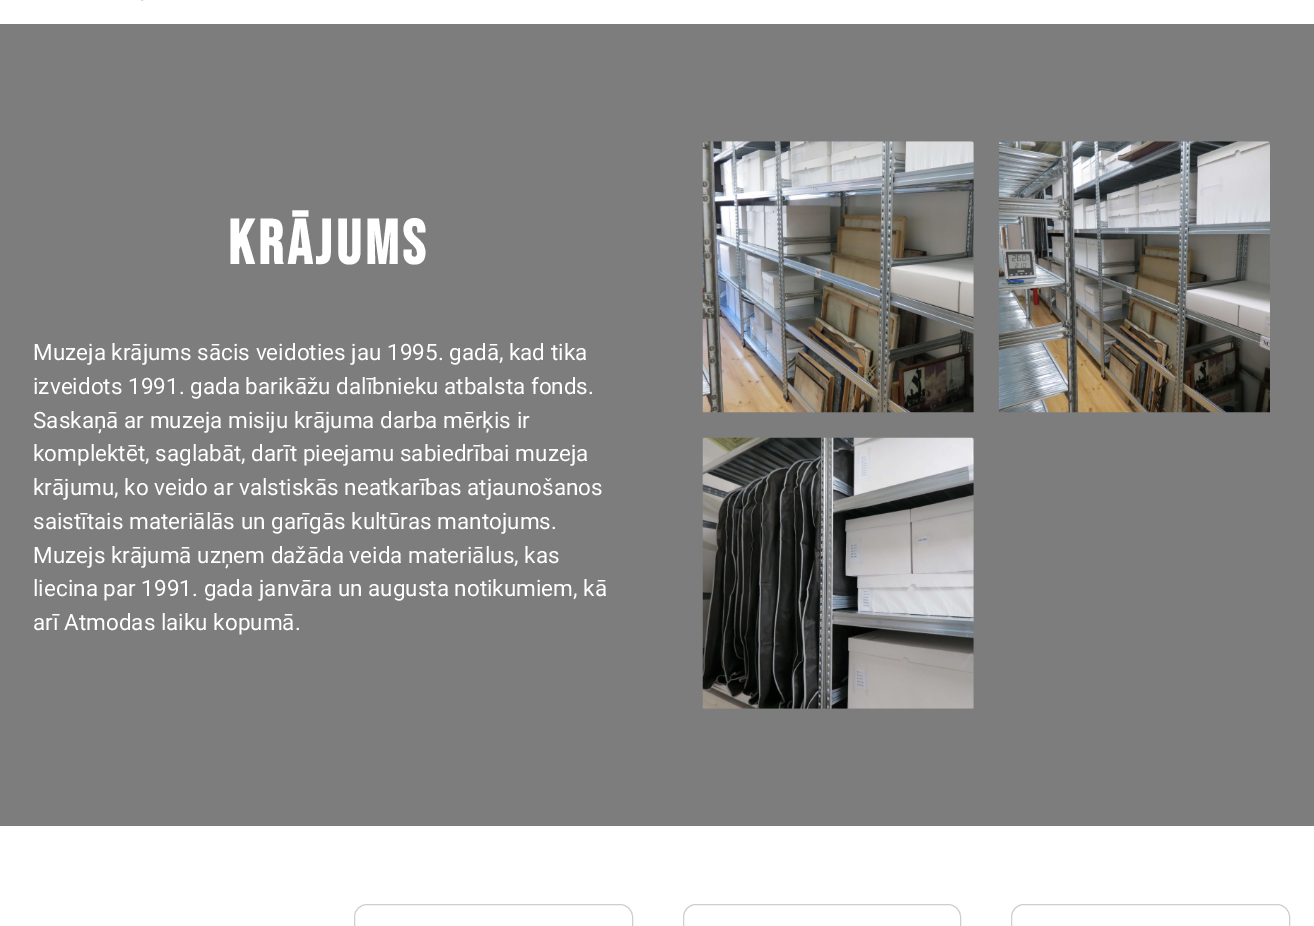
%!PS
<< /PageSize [1314 926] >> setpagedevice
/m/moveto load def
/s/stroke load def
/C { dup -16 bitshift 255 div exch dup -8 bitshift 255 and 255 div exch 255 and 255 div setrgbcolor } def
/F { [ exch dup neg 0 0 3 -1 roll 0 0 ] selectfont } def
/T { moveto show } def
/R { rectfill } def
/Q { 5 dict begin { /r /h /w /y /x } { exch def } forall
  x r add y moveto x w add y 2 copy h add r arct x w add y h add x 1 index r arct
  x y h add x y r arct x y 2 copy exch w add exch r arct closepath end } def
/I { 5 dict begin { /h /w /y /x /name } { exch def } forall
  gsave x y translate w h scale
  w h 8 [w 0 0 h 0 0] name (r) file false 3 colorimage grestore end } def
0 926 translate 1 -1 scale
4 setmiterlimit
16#FFFFFF C
0 0 1314 926 R
(1.rgb) 141 0 3 1 I
16#7D7D7D C
0 24 1314 802 R
/BebasNeue-Bold 62.5 F
16#FFFFFF C
228 264 m 3.75 0 (KRĀJUMS) ashow
/Roboto-Regular 22.5 F
(Muzeja krājums sācis veidoties jau 1995. gadā, kad tika) 33 360 T
(izveidots 1991. gada barikāžu dalībnieku atbalsta fonds.) 33 394 T
(Saskaņā ar muzeja misiju krājuma darba mērķis ir) 33 428 T
(komplektēt, saglabāt, darīt pieejamu sabiedrībai muzeja) 33 461 T
(krājumu, ko veido ar valstiskās neatkarības atjaunošanos) 33 495 T
(saistītais materiālās un garīgās kultūras mantojums.) 33 529 T
(Muzejs krājumā uzņem dažāda veida materiālus, kas) 33 563 T
(liecina par 1991. gada janvāra un augusta notikumiem, kā) 33 596 T
(arī Atmodas laiku kopumā.) 33 630 T
(2.rgb) 702 141 272 272 I
(3.rgb) 998 141 272 272 I
(4.rgb) 702 437 272 272 I
16#CECECE C
354.5 904.5 278 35 12.5 Q s
683.5 904.5 277 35 12.5 Q s
1011.5 904.5 278 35 12.5 Q s
showpage
